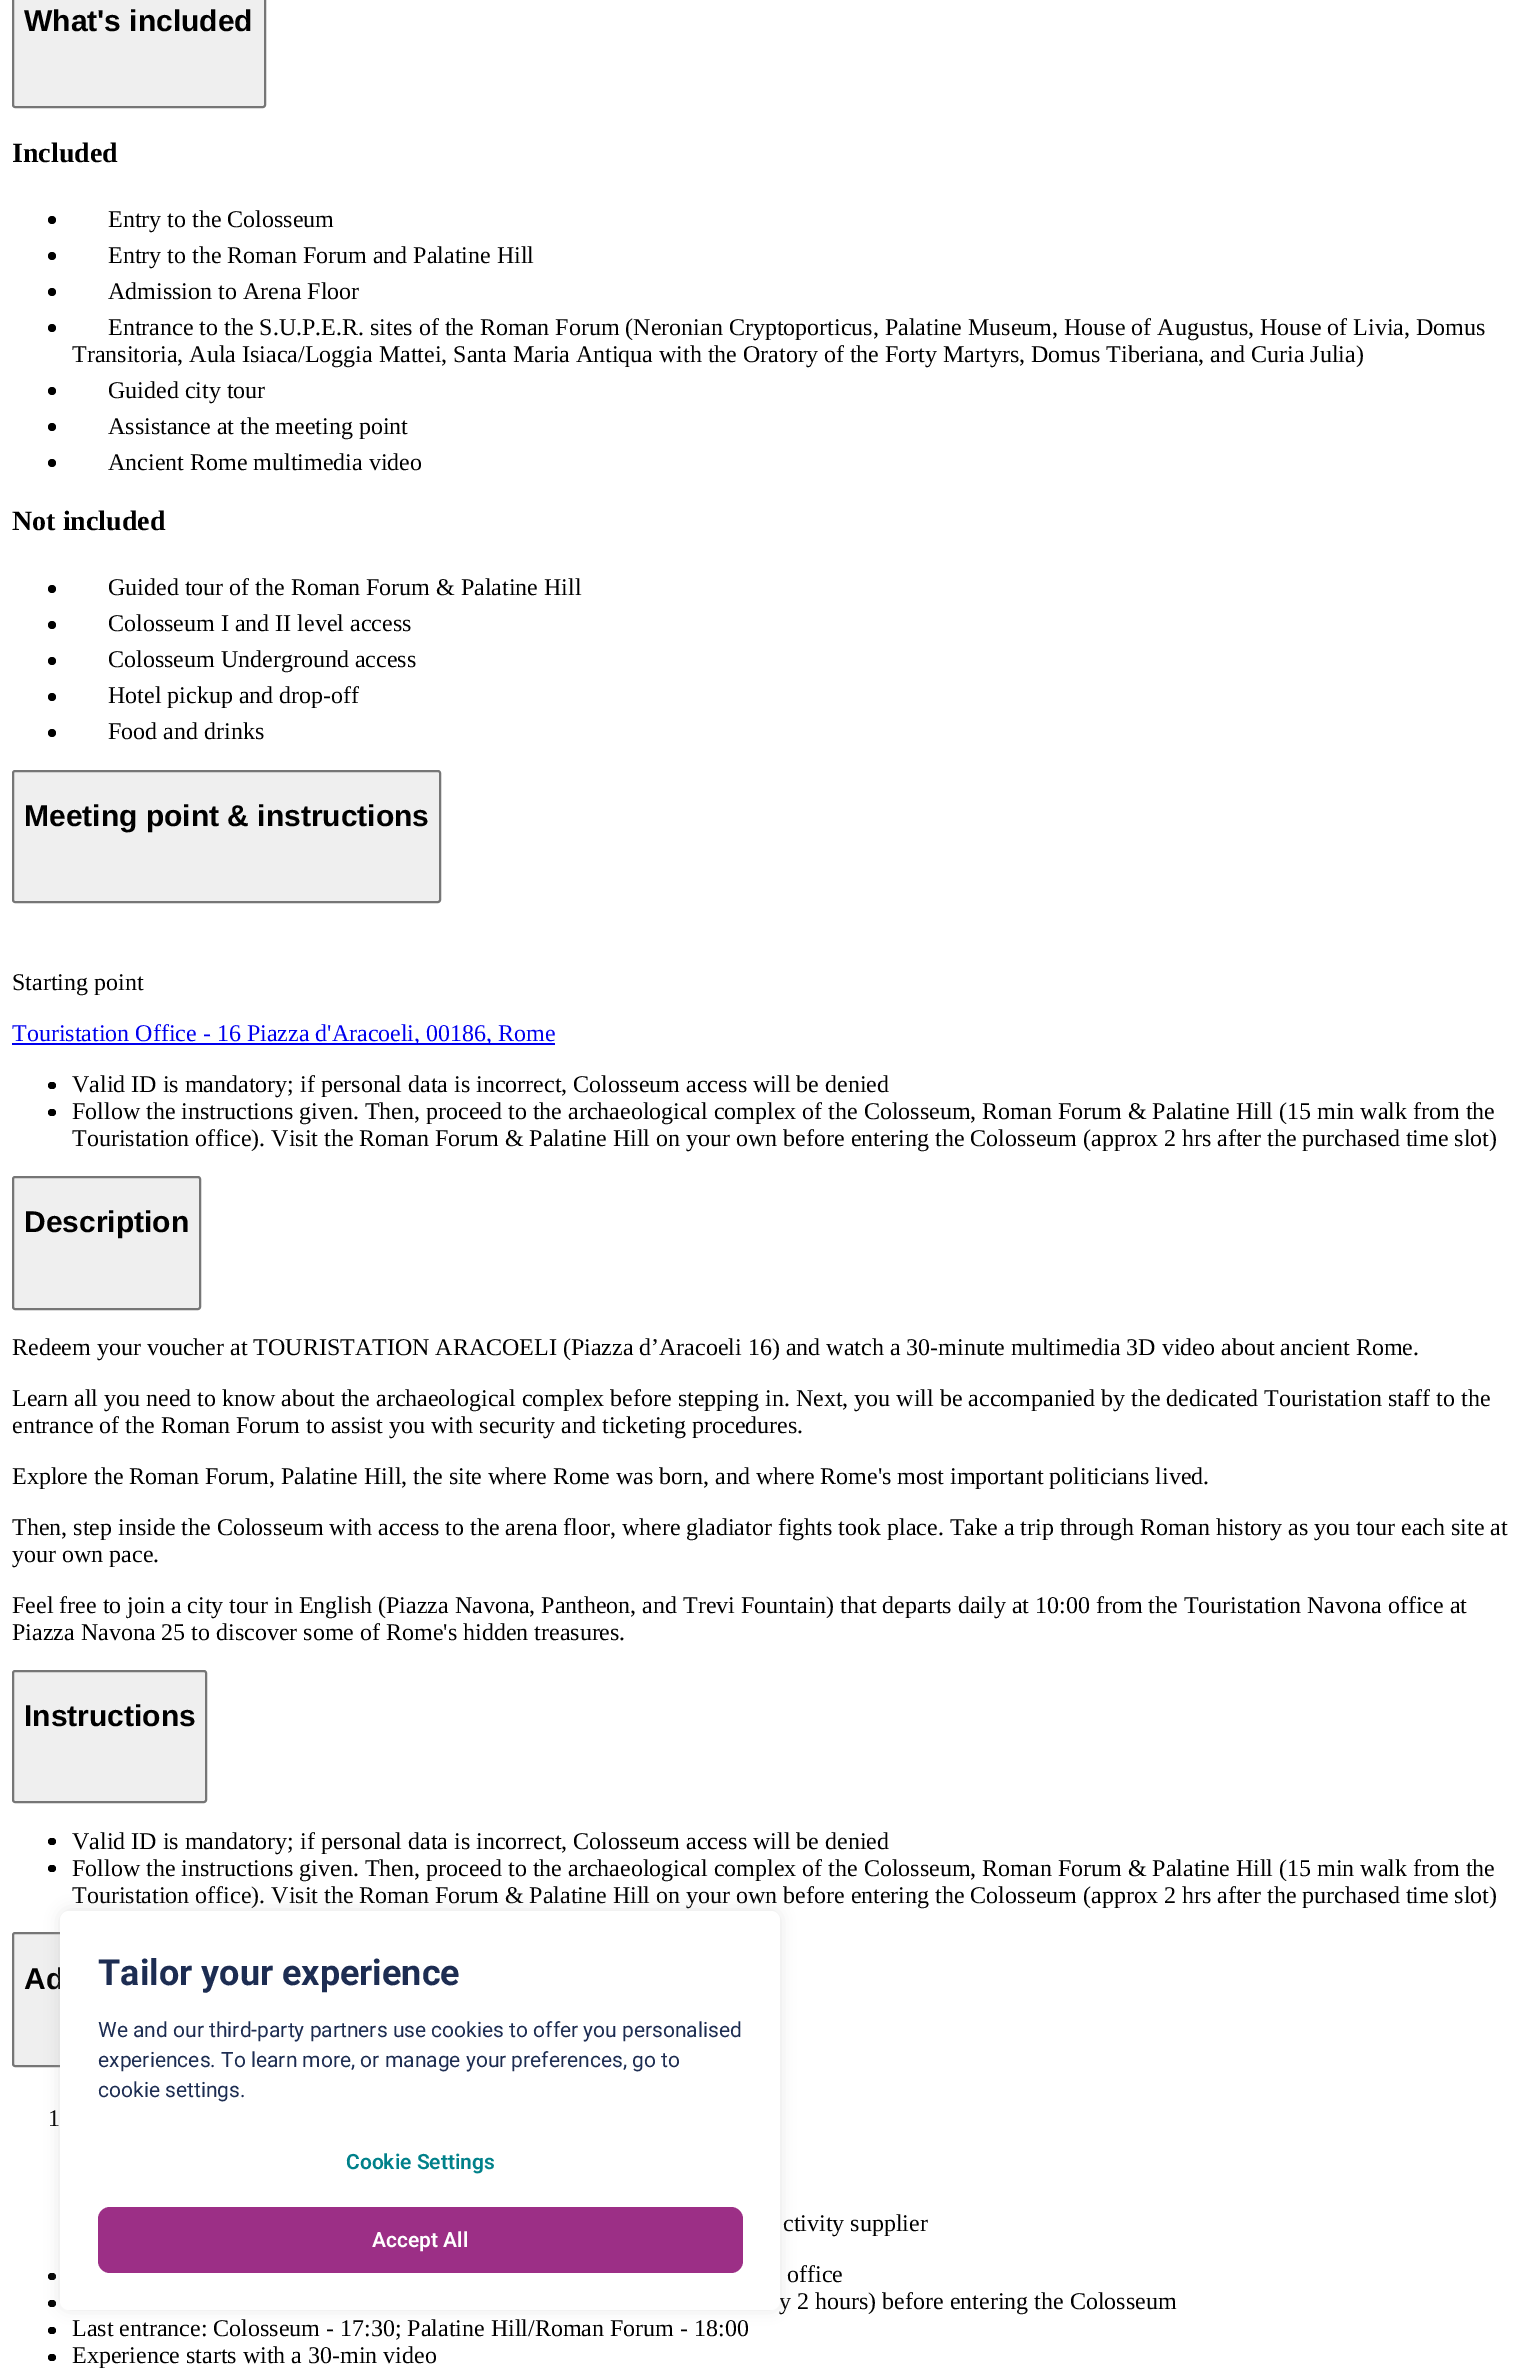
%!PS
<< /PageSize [1539 2369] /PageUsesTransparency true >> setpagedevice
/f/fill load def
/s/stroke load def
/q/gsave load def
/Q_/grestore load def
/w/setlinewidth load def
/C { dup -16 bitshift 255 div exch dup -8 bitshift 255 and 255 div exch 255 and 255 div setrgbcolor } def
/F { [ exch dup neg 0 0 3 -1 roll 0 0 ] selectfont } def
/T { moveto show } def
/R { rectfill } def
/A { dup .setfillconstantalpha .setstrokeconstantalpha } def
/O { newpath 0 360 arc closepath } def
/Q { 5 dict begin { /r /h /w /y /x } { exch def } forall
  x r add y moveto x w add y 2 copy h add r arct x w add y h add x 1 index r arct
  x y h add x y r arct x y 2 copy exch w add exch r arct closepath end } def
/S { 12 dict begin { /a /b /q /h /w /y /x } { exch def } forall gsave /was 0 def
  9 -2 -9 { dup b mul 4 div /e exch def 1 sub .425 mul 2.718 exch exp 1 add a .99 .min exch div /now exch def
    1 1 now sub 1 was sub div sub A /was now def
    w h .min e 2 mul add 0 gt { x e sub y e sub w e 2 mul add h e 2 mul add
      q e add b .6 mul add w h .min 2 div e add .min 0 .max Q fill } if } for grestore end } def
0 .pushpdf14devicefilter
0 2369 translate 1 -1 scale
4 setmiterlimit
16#FFFFFF C
0 0 1539 2369 R
16#EFEFEF C
13 -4 252 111 2 Q q f Q_
16#767676 C
2 w
s
/LiberationSans-Bold 30 F
16#000000 C
(What's included) 24 31 T
/LiberationSerif-Bold 28 F
(Included) 12 162 T
52 220 4 O f
/LiberationSerif-Regular 24 F
(Entry to the Colosseum) 108 227 T
52 256 4 O f
(Entry to the Roman Forum and Palatine Hill) 108 263 T
52 292 4 O f
(Admission to Arena Floor) 108 299 T
52 328 4 O f
(Entrance to the S.U.P.E.R. sites of the Roman Forum \(Neronian Cryptoporticus, Palatine Museum, House of Augustus, House of Livia, Domus) 108 335 T
(Transitoria, Aula Isiaca/Loggia Mattei, Santa Maria Antiqua with the Oratory of the Forty Martyrs, Domus Tiberiana, and Curia Julia\)) 72 362 T
52 391 4 O f
(Guided city tour) 108 398 T
52 427 4 O f
(Assistance at the meeting point) 108 434 T
52 463 4 O f
(Ancient Rome multimedia video) 108 470 T
/LiberationSerif-Bold 28 F
(Not included) 12 530 T
52 589 4 O f
/LiberationSerif-Regular 24 F
(Guided tour of the Roman Forum & Palatine Hill) 108 595 T
52 625 4 O f
(Colosseum I and II level access) 108 631 T
52 661 4 O f
(Colosseum Underground access) 108 667 T
52 697 4 O f
(Hotel pickup and drop-off) 108 703 T
52 733 4 O f
(Food and drinks) 108 739 T
16#EFEFEF C
13 771 427 131 2 Q q f Q_
16#767676 C
s
/LiberationSans-Bold 30 F
16#000000 C
(Meeting point & instructions) 24 826 T
/LiberationSerif-Regular 24 F
(Starting point) 12 990 T
16#0000EE C
12 1043 543 2 R
(Touristation Office - 16 Piazza d'Aracoeli, 00186, Rome) 12 1041 T
16#000000 C
48 1082 8 7 3.5 Q f
(Valid ID is mandatory; if personal data is incorrect, Colosseum access will be denied) 72 1092 T
48 1109 8 7 3.5 Q f
(Follow the instructions given. Then, proceed to the archaeological complex of the Colosseum, Roman Forum & Palatine Hill \(15 min walk from the) 72 1119 T
(Touristation office\). Visit the Roman Forum & Palatine Hill on your own before entering the Colosseum \(approx 2 hrs after the purchased time slot\)) 72 1146 T
16#EFEFEF C
13 1177 187 132 2 Q q f Q_
16#767676 C
s
/LiberationSans-Bold 30 F
16#000000 C
(Description) 24 1232 T
/LiberationSerif-Regular 24 F
(Redeem your voucher at TOURISTATION ARACOELI \(Piazza d’Aracoeli 16\) and watch a 30-minute multimedia 3D video about ancient Rome.) 12 1355 T
(Learn all you need to know about the archaeological complex before stepping in. Next, you will be accompanied by the dedicated Touristation staff to the) 12 1406 T
(entrance of the Roman Forum to assist you with security and ticketing procedures.) 12 1433 T
(Explore the Roman Forum, Palatine Hill, the site where Rome was born, and where Rome's most important politicians lived.) 12 1484 T
(Then, step inside the Colosseum with access to the arena floor, where gladiator fights took place. Take a trip through Roman history as you tour each site at) 12 1535 T
(your own pace.) 12 1562 T
(Feel free to join a city tour in English \(Piazza Navona, Pantheon, and Trevi Fountain\) that departs daily at 10:00 from the Touristation Navona office at) 12 1613 T
(Piazza Navona 25 to discover some of Rome's hidden treasures.) 12 1640 T
16#EFEFEF C
13 1671 193 131 2 Q q f Q_
16#767676 C
s
/LiberationSans-Bold 30 F
16#000000 C
(Instructions) 24 1726 T
48 1838 8 7 3.5 Q f
/LiberationSerif-Regular 24 F
(Valid ID is mandatory; if personal data is incorrect, Colosseum access will be denied) 72 1849 T
48 1865 8 7 3.5 Q f
(Follow the instructions given. Then, proceed to the archaeological complex of the Colosseum, Roman Forum & Palatine Hill \(15 min walk from the) 72 1876 T
(Touristation office\). Visit the Roman Forum & Palatine Hill on your own before entering the Colosseum \(approx 2 hrs after the purchased time slot\)) 72 1903 T
16#EFEFEF C
13 1933 232 133 2 Q q f Q_
16#767676 C
s
/LiberationSans-Bold 30 F
16#000000 C
(Ad) 24 1989 T
/LiberationSerif-Regular 24 F
(1) 48 2126 T
(ctivity supplier) 783 2231 T
48 2273 8 7 3.5 Q f
(office) 787 2282 T
48 2300 8 7 3.5 Q f
(y 2 hours\) before entering the Colosseum) 779 2309 T
48 2327 8 7 3.5 Q f
(Last entrance: Colosseum - 17:30; Palatine Hill/Roman Forum - 18:00) 72 2336 T
48 2354 8 7 3.5 Q f
(Experience starts with a 30-min video) 72 2363 T
16#ACABAB C
60 1910 720 399 9 7.5 .3 S
16#FFFFFF C
60 1911 720 399 9 Q f
/Roboto-Bold 36 F
16#1D2D52 C
(Tailor your experience) 98 1985 T
/Roboto-Regular 21 F
(We and our third-party partners use cookies to offer you personalised) 98 2037 T
(experiences. To learn more, or manage your preferences, go to) 98 2067 T
(cookie settings.) 98 2097 T
/Roboto-SemiBold 21 F
16#00818A C
(Cookie Settings) 346 2169 T
16#9C2F86 C
98 2207 645 66 12 Q f
16#FFFFFF C
(Accept All) 372 2247 T
.poppdf14devicefilter showpage
